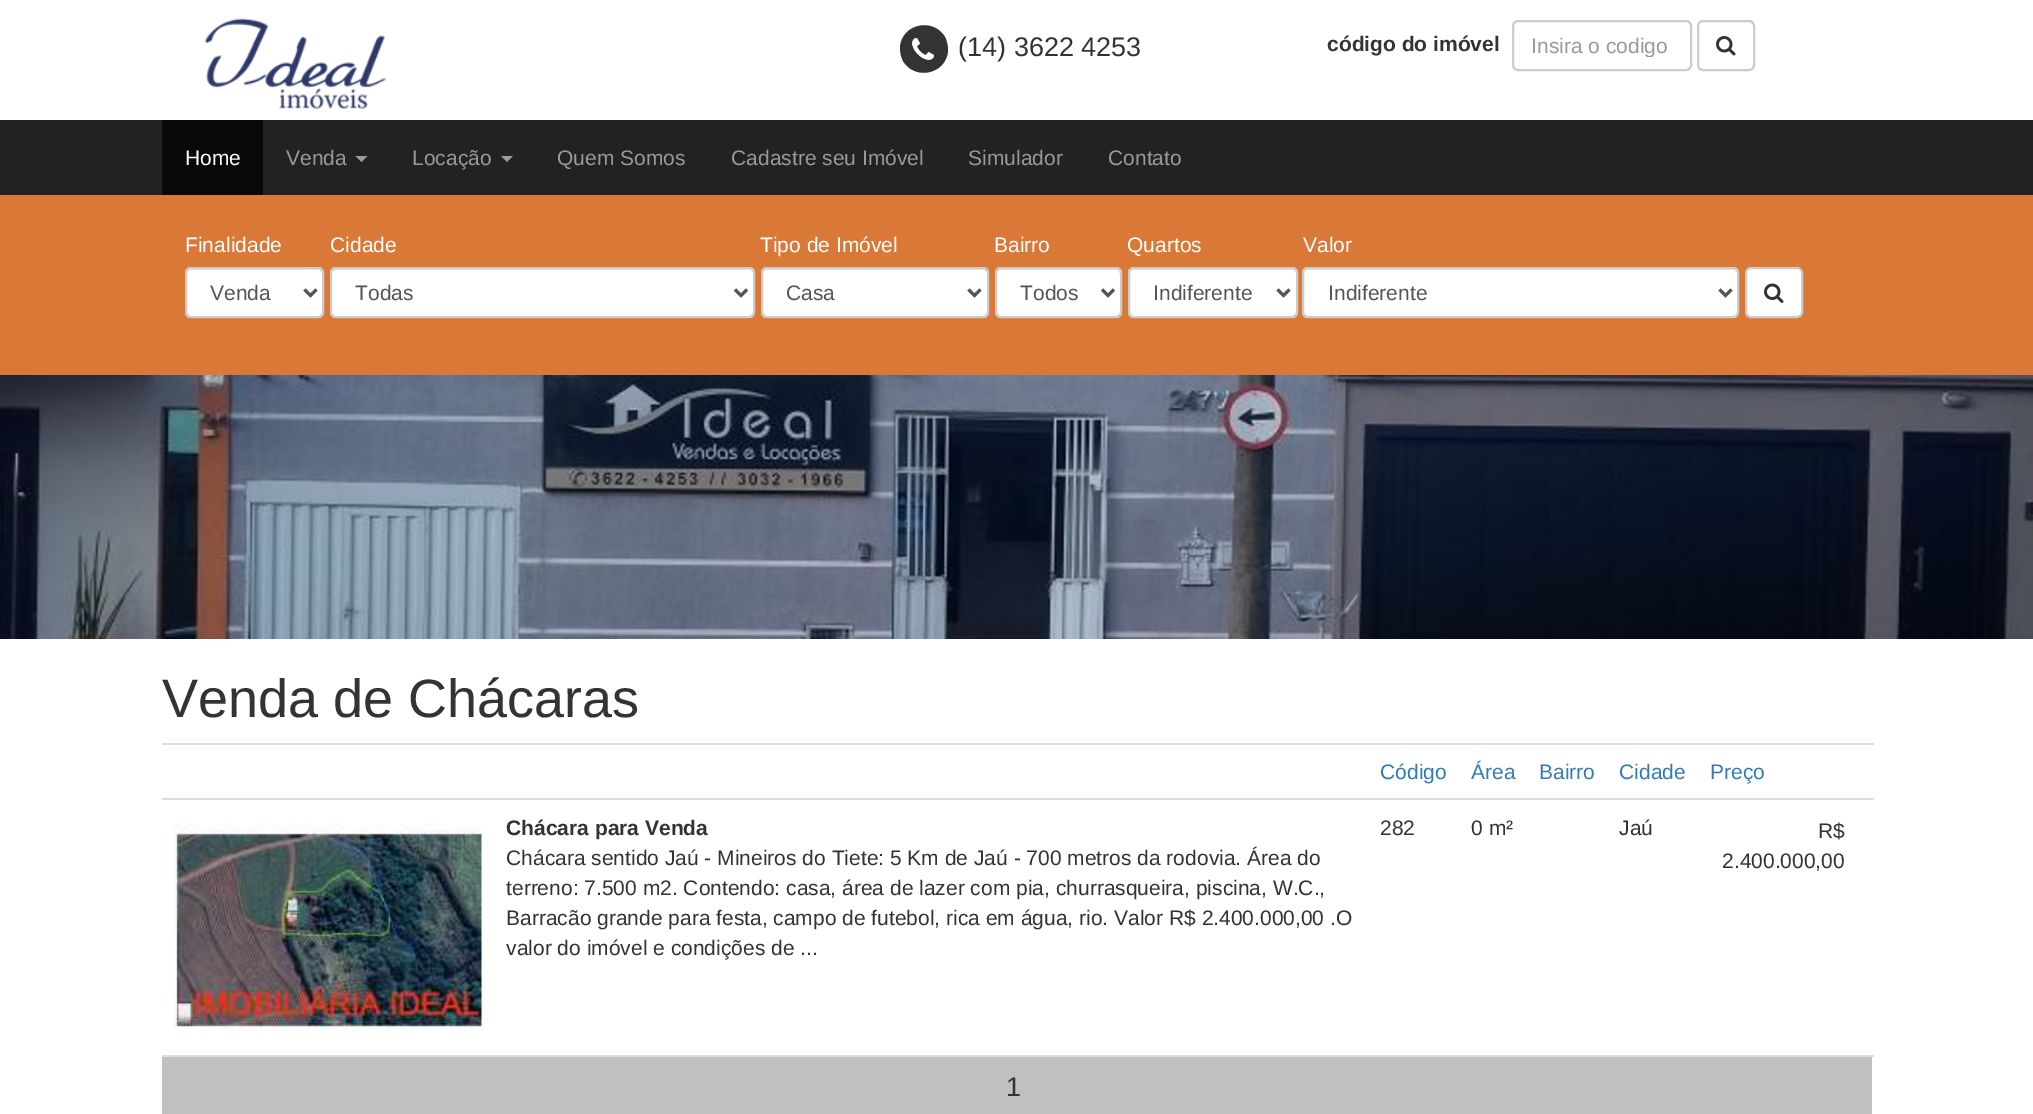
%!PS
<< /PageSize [2033 1114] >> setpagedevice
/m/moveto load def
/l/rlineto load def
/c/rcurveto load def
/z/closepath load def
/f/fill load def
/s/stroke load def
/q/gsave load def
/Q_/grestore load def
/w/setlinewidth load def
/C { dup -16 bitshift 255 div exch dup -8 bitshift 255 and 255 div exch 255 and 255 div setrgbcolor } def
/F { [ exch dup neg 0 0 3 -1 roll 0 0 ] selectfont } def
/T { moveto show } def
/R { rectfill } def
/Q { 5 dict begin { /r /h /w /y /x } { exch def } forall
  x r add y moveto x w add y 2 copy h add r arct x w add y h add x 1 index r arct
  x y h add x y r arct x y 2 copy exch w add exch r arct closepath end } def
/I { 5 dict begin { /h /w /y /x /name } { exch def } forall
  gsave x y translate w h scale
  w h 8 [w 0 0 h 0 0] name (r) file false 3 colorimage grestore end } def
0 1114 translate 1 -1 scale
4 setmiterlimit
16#FFFFFF C
0 0 2033 1114 R
(1.rgb) 204 18 182 91 I
16#333333 C
945 37 m 2 4 3 9 3 14 c -2 23 -33 30 -45 10 c -2 -4 -3 -9 -3 -14 c 2 -23 33 -30 45 -10 c z f
(2.rgb) 912 38 22 22 I
/LiberationSans-Regular 27 F
(\(14\) 3622 4253) 958 56 T
/LiberationSans-Bold 21 F
(código do imóvel) 1327 51 T
16#ECECEC C
1518 22 m 140 0 l 7 0 30 -6 32 4 c 0 41 l 1 -1 1 -2 1 -3 c 0 -38 l 0 -3 -2 -5 -5 -5 c -167 0 l -3 0 -5 2 -5 5 c 0 1 l 0 -2 2 -5 4 -5 c z f
16#CCCCCC C
2 w
1513 21 178 49 5 Q s
q
1532 33 141 24 rectclip
/LiberationSans-Regular 21 F
16#999999 C
(Insira o codigo) 1531 53 T
Q_
1698 21 56 49 5 Q s
(3.rgb) 1716 36 20 20 I
16#222222 C
0 120 2033 75 R
16#080808 C
162 120 101 75 R
/LiberationSans-Regular 21 F
16#FFFFFF C
(Home) 185 165 T
16#999999 C
(Venda) 286 165 T
16#9D9D9D C
355.5 156 m 12 0 l -6 6 l z f
16#999999 C
(Locação) 412 165 T
16#9D9D9D C
501 156 m 12 0 l -6 6 l z f
16#999999 C
(Quem Somos) 557 165 T
(Cadastre seu Imóvel) 731 165 T
(Simulador) 968 165 T
(Contato) 1108 165 T
16#DA7837 C
0 195 2033 180 R
16#FFFFFF C
(Finalidade) 185 252 T
185 267 139 51 6 Q f
16#ECECEC C
190 270 m 107 0 l 27 0 25 -5 25 17 c 0 28 l 1 -1 1 -2 1 -3 c 0 -38 l 0 -3 -2 -5 -5 -5 c -127 0 l -3 0 -5 2 -5 5 c 0 -2 2 -4 4 -4 c z f
16#CCCCCC C
186 268 137 49 5 Q s
16#555555 C
3 w
304.5 289.5 m 6 6 l 6 -6 l s
(Venda) 210 300 T
16#FFFFFF C
(Cidade) 330 252 T
330 267 425 51 6 Q f
16#ECECEC C
336 270 m 412 0 l 3 0 5 2 5 4 c 0 -3 -2 -5 -5 -5 c -411 0 l -3 0 -5 2 -5 5 c 0 -2 2 -4 4 -4 c z f
16#CCCCCC C
2 w
331 268 423 49 5 Q s
16#555555 C
3 w
735 289.5 m 6 6 l 6 -6 l s
(Todas) 355 300 T
16#FFFFFF C
(Tipo de Imóvel) 760 252 T
761 267 228 51 6 Q f
16#ECECEC C
766 270 m 216 0 l 3 0 5 2 5 4 c 0 -3 -2 -5 -5 -5 c -215 0 l -3 0 -5 2 -5 5 c 0 -2 2 -4 4 -4 c z f
16#CCCCCC C
2 w
762 268 226 49 5 Q s
16#555555 C
3 w
968.5 289.5 m 6 6 l 6 -6 l s
(Casa) 786 300 T
16#FFFFFF C
(Bairro) 994 252 T
995 267 127 51 6 Q f
16#ECECEC C
1000 270 m 116 0 l 5 0 4 8 4 11 c 0 34 l 1 -1 1 -2 1 -3 c 0 -38 l 0 -3 -2 -5 -5 -5 c -115 0 l -3 0 -5 2 -5 5 c 0 -2 2 -4 4 -4 c z f
16#CCCCCC C
2 w
996 268 125 49 5 Q s
16#555555 C
3 w
1102 289.5 m 6 6 l 6 -6 l s
(Todos) 1020 300 T
16#FFFFFF C
(Quartos) 1127 252 T
1128 267 170 51 6 Q f
16#ECECEC C
1134 270 m 158 0 l 2 0 4 2 4 4 c 0 -3 -2 -5 -5 -5 c -156 0 l -3 0 -5 2 -5 5 c 0 -2 2 -4 4 -4 c z f
16#CCCCCC C
2 w
1129 268 168 49 5 Q s
16#555555 C
3 w
1277.5 289.5 m 6 6 l 6 -6 l s
(Indiferente) 1153 300 T
16#FFFFFF C
(Valor) 1303 252 T
1302 267 437 51 6 Q f
16#ECECEC C
1308 270 m 424 0 l 3 0 5 2 5 4 c 0 -3 -2 -5 -5 -5 c -423 0 l -3 0 -5 2 -5 5 c 0 -2 2 -4 4 -4 c z f
16#CCCCCC C
2 w
1303 268 435 49 5 Q s
16#555555 C
3 w
1719.5 289.5 m 6 6 l 6 -6 l s
(Indiferente) 1328 300 T
16#FFFFFF C
1746 268 56 49 5 Q q f Q_
16#CCCCCC C
2 w
s
(4.rgb) 1764 283 20 20 I
(5.rgb) 0 375 2033 264 I
/LiberationSans-Regular 54 F
16#333333 C
(Venda de Chácaras) 162 717 T
/LiberationSans-Regular 21 F
16#337AB7 C
(Código) 1380 779 T
(Área) 1471 779 T
(Bairro) 1539 779 T
(Cidade) 1619 779 T
16#DDDDDD C
162 743 1712 2 R
16#337AB7 C
(Preço) 1710 779 T
(6.rgb) 174 823 308 206 I
/LiberationSans-Bold 21 F
16#333333 C
(Chácara para Venda) 506 835 T
/LiberationSans-Regular 21 F
(Chácara sentido Jaú - Mineiros do Tiete: 5 Km de Jaú - 700 metros da rodovia. Área do) 506 865 T
(terreno: 7.500 m2. Contendo: casa, área de lazer com pia, churrasqueira, piscina, W.C.,) 506 895 T
(Barracão grande para festa, campo de futebol, rica em água, rio. Valor R$ 2.400.000,00 .O) 506 925 T
(valor do imóvel e condições de ...) 506 955 T
(282) 1380 835 T
(0 m²) 1471 835 T
(Jaú) 1619 835 T
16#DDDDDD C
162 798 1712 2 R
16#333333 C
(R$) 1818 838 T
(2.400.000,00) 1722 868 T
16#C0C0C0 C
162 1057 1710 57 R
16#DDDDDD C
162 1055 1712 2 R
/LiberationSans-Regular 27 F
16#333333 C
(1) 1006 1096 T
showpage
